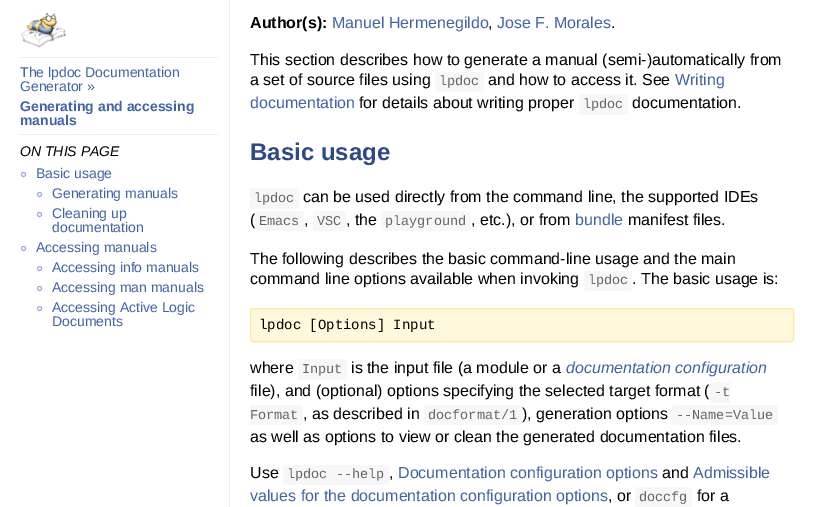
%!PS
<< /PageSize [814 507] >> setpagedevice
/m/moveto load def
/l/rlineto load def
/c/rcurveto load def
/z/closepath load def
/f/fill load def
/s/stroke load def
/q/gsave load def
/Q_/grestore load def
/C { dup -16 bitshift 255 div exch dup -8 bitshift 255 and 255 div exch 255 and 255 div setrgbcolor } def
/F { [ exch dup neg 0 0 3 -1 roll 0 0 ] selectfont } def
/T { moveto show } def
/R { rectfill } def
/O { newpath 0 360 arc closepath } def
/Q { 5 dict begin { /r /h /w /y /x } { exch def } forall
  x r add y moveto x w add y 2 copy h add r arct x w add y h add x 1 index r arct
  x y h add x y r arct x y 2 copy exch w add exch r arct closepath end } def
/I { 5 dict begin { /h /w /y /x /name } { exch def } forall
  gsave x y translate w h scale
  w h 8 [w 0 0 h 0 0] name (r) file false 3 colorimage grestore end } def
0 507 translate 1 -1 scale
4 setmiterlimit
16#FFFFFF C
0 0 814 507 R
16#EEEEEE C
229 0 1 507 R
(1.rgb) 21 13 46 35 I
20 57 199 1 R
/LiberationSans-Regular 14 F
16#4263AB C
(The lpdoc Documentation) 20 77 T
(Generator ») 20 91 T
/LiberationSans-Bold 14 F
(Generating and accessing) 20 111 T
(manuals) 20 125 T
16#EEEEEE C
20 134 199 1 R
/LiberationSans-Italic 14 F
16#000000 C
(ON THIS PAGE) 20 156 T
16#9CADD3 C
23.5 174.5 2 O s
/LiberationSans-Regular 14 F
16#4263AB C
(Basic usage) 36 178 T
16#9CADD3 C
39.5 194.5 2 O s
16#4263AB C
(Generating manuals) 52 198 T
16#9CADD3 C
39.5 214.5 2 O s
16#4263AB C
(Cleaning up) 52 218 T
(documentation) 52 232 T
16#9CADD3 C
23.5 248.5 2 O s
16#4263AB C
(Accessing manuals) 36 252 T
16#9CADD3 C
39.5 268.5 2 O s
16#4263AB C
(Accessing info manuals) 52 272 T
16#9CADD3 C
39.5 288.5 2 O s
16#4263AB C
(Accessing man manuals) 52 292 T
16#9CADD3 C
39.5 308.5 2 O s
16#4263AB C
(Accessing Active Logic) 52 312 T
(Documents) 52 326 T
/LiberationSans-Bold 16 F
16#000000 C
(Author\(s\):) 250 28 T
/LiberationSans-Regular 16 F
16#4263AB C
(Manuel Hermenegildo) 332 28 T
16#000000 C
(,) 488 28 T
16#4263AB C
(Jose F. Morales) 497 28 T
16#000000 C
(.) 611 28 T
(This section describes how to generate a manual \(semi-\)automatically from) 250 65 T
(a set of source files using) 250 85 T
16#F7F7F7 C
435 72 49 20 3 Q f
/LiberationMono-Regular 13.5 F
16#666666 C
(lpdoc) 439 85 T
/LiberationSans-Regular 16 F
16#000000 C
(and how to access it. See) 488 85 T
16#4263AB C
(Writing) 675 85 T
(documentation) 250 108 T
16#000000 C
(for details about writing proper) 359 108 T
16#F7F7F7 C
579 94 49 21 3 Q f
/LiberationMono-Regular 13.5 F
16#666666 C
(lpdoc) 583 108 T
/LiberationSans-Regular 16 F
16#000000 C
(documentation.) 632 108 T
/LiberationSans-Bold 24 F
16#2E4985 C
(Basic usage) 250 160 T
16#F7F7F7 C
250 188 49 21 3 Q f
/LiberationMono-Regular 13.5 F
16#666666 C
(lpdoc) 254 202 T
/LiberationSans-Regular 16 F
16#000000 C
(can be used directly from the command line, the supported IDEs) 303 202 T
(\() 250 225 T
16#F7F7F7 C
255 211 49 20 3 Q f
/LiberationMono-Regular 13.5 F
16#666666 C
(Emacs) 259 225 T
/LiberationSans-Regular 16 F
16#000000 C
(,) 304 225 T
16#F7F7F7 C
313 211 33 20 3 Q f
/LiberationMono-Regular 13.5 F
16#666666 C
(VSC) 317 225 T
/LiberationSans-Regular 16 F
16#000000 C
(, the) 346 225 T
16#F7F7F7 C
381 211 90 20 3 Q f
/LiberationMono-Regular 13.5 F
16#666666 C
(playground) 385 225 T
/LiberationSans-Regular 16 F
16#000000 C
(, etc.\), or from) 471 225 T
16#4263AB C
(bundle) 575 225 T
16#000000 C
(manifest files.) 628 225 T
(The following describes the basic command-line usage and the main) 250 264 T
(command line options available when invoking) 250 284 T
16#F7F7F7 C
584 271 48 20 3 Q f
/LiberationMono-Regular 13.5 F
16#666666 C
(lpdoc) 588 284 T
/LiberationSans-Regular 16 F
16#000000 C
(. The basic usage is:) 632 284 T
16#FFF8DD C
250.5 308.5 543 33 2.5 Q q f Q_
16#FBE89D C
s
/LiberationMono-Regular 14 F
16#000000 C
(lpdoc [Options] Input) 259 329 T
/LiberationSans-Regular 16 F
(where) 250 373 T
16#F7F7F7 C
298 359 49 21 3 Q f
/LiberationMono-Regular 13.5 F
16#666666 C
(Input) 302 373 T
/LiberationSans-Regular 16 F
16#000000 C
(is the input file \(a module or a) 351 373 T
/LiberationSans-Italic 16 F
16#4263AB C
(documentation configuration) 566 373 T
/LiberationSans-Regular 16 F
16#000000 C
(file\), and \(optional\) options specifying the selected target format \() 250 396 T
16#F7F7F7 C
713 382 m 17 0 l 0 21 l -17 0 l -1.5 0 -3 -1.5 -3 -3 c 0 -15 l 0 -1.5 1.5 -3 3 -3 c z f
/LiberationMono-Regular 13.5 F
16#666666 C
(-t) 714 396 T
16#F7F7F7 C
250 405 m 50 0 l 1.5 0 3 1.5 3 3 c 0 14 l 0 1.5 -1.5 3 -3 3 c -50 0 l z f
16#666666 C
(Format) 250 419 T
/LiberationSans-Regular 16 F
16#000000 C
(, as described in) 303 419 T
16#F7F7F7 C
424 405 98 20 3 Q f
/LiberationMono-Regular 13.5 F
16#666666 C
(docformat/1) 428 419 T
/LiberationSans-Regular 16 F
16#000000 C
(\), generation options) 522 419 T
16#F7F7F7 C
672 405 106 20 3 Q f
/LiberationMono-Regular 13.5 F
16#666666 C
(--Name=Value) 676 419 T
/LiberationSans-Regular 16 F
16#000000 C
(as well as options to view or clean the generated documentation files.) 250 442 T
(Use) 250 478 T
16#F7F7F7 C
283 465 106 20 3 Q f
/LiberationMono-Regular 13.5 F
16#666666 C
(lpdoc --help) 287 478 T
/LiberationSans-Regular 16 F
16#000000 C
(,) 389 478 T
16#4263AB C
(Documentation configuration options) 398 478 T
16#000000 C
(and) 662 478 T
16#4263AB C
(Admissible) 693 478 T
(values for the documentation configuration options) 250 501 T
16#000000 C
(, or) 608 501 T
16#F7F7F7 C
635 487 57 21 3 Q f
/LiberationMono-Regular 13.5 F
16#666666 C
(doccfg) 639 501 T
/LiberationSans-Regular 16 F
16#000000 C
(for a) 697 501 T
showpage
